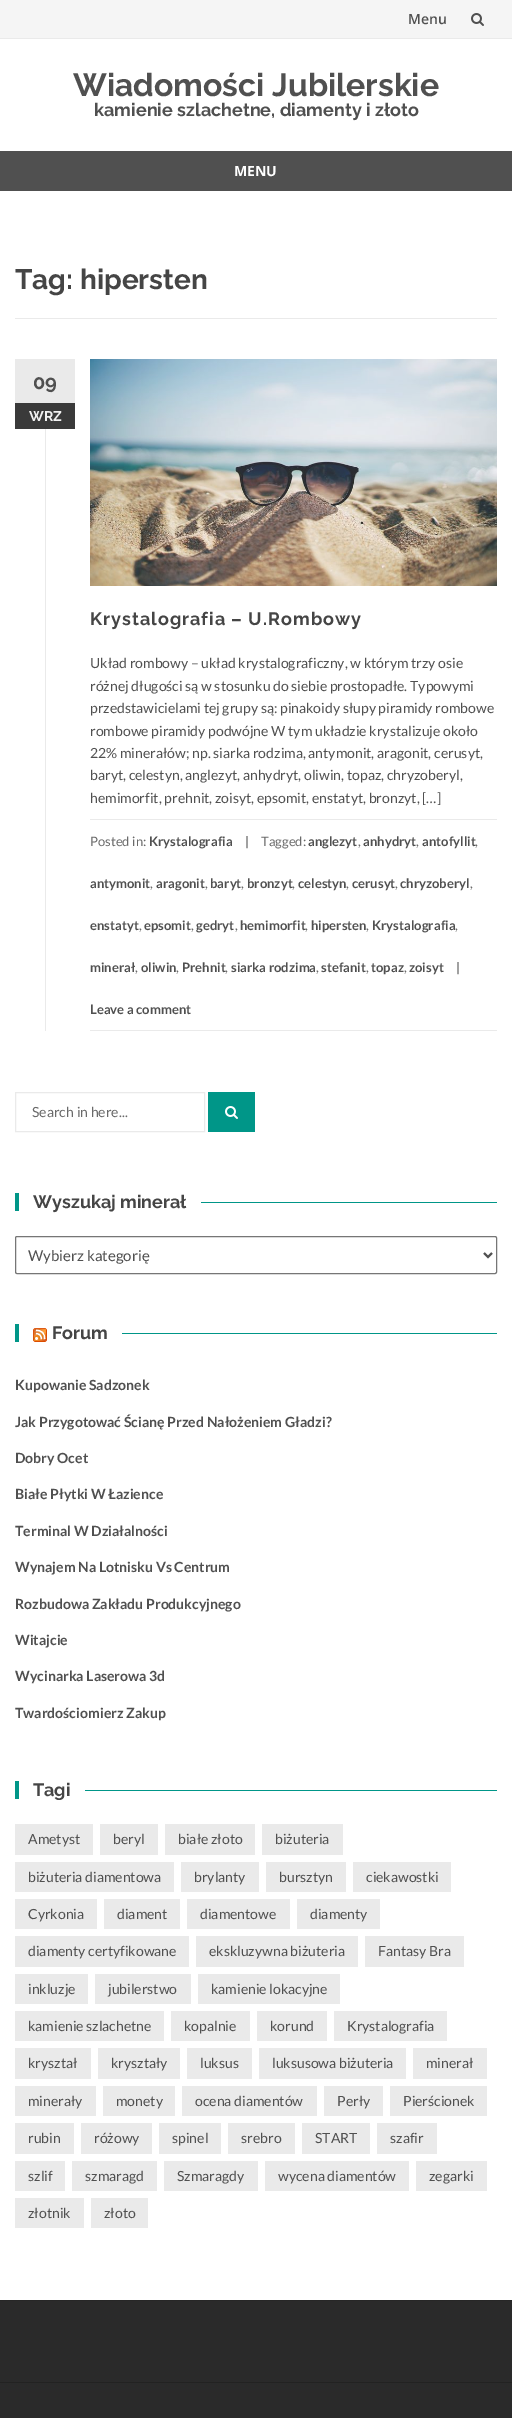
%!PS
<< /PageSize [512 2418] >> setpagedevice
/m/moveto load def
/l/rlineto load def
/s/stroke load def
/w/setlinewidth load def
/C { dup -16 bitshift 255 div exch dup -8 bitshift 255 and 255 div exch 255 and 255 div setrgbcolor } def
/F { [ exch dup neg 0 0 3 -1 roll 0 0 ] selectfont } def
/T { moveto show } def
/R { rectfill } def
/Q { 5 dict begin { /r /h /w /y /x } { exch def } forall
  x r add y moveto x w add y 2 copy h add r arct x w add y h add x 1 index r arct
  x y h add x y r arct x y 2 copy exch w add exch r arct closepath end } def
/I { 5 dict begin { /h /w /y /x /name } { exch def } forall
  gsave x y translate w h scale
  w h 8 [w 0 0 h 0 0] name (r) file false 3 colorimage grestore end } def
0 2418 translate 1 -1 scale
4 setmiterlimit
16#FFFFFF C
0 0 512 2418 R
16#F5F5F5 C
0 0 512 38 R
16#EAEAEA C
0 38 512 1 R
/OpenSans-SemiBold 14 F
16#505050 C
(Menu) 408 24 T
(1.rgb) 471 13 13 13 I
/Raleway-Bold 32 F
(Wiadomości Jubilerskie) 73 96 T
/Raleway-Bold 18 F
(kamienie szlachetne, diamenty i złoto) 94 116 T
0 151 512 40 R
/OpenSans-Bold 14 F
16#FFFFFF C
(MENU) 234 176 T
16#EAEAEA C
15 318 482 1 R
/Raleway-Bold 28 F
16#454545 C
(Tag: hipersten) 15 289 T
16#EAEAEA C
15 359 60 44 R
/Raleway-Bold 20 F
16#505050 C
(09) 33 389 T
16#3A3A3A C
15 403 60 26 R
/Raleway-Bold 14 F
16#F1F1F1 C
(WRZ) 29 421 T
(2.rgb) 90 359 407 227 I
16#EAEAEA C
45 429 1 602 R
/Raleway-Bold 18 F
16#454545 C
90 625 m 1 0 (Krystalografia – U.Rombowy) ashow
/Lato-Regular 14 F
16#505050 C
(Układ rombowy – układ krystalograficzny, w którym trzy osie) 90 668 T
(różnej długości są w stosunku do siebie prostopadłe. Typowymi) 90 691 T
(przedstawicielami tej grupy są: pinakoidy słupy piramidy rombowe) 90 713 T
(rombowe piramidy podwójne W tym układzie krystalizuje około) 90 736 T
(22% minerałów; np. siarka rodzima, antymonit, aragonit, cerusyt,) 90 758 T
(baryt, celestyn, anglezyt, anhydryt, oliwin, topaz, chryzoberyl,) 90 780 T
(hemimorfit, prehnit, zoisyt, epsomit, enstatyt, bronzyt, […]) 90 803 T
16#EAEAEA C
90 819 407 1 R
90 1030 407 1 R
/Lato-Regular 13 F
16#6A6A6A C
(Posted in:) 90 846 T
/Lato-Bold 13 F
16#505050 C
(Krystalografia) 149 846 T
/Lato-Regular 13 F
(|) 245 846 T
16#6A6A6A C
(Tagged:) 261 846 T
/Lato-Bold 13 F
16#505050 C
(anglezyt) 308 846 T
/Lato-Regular 13 F
16#6A6A6A C
(,) 358 846 T
/Lato-Bold 13 F
16#505050 C
(anhydryt) 363 846 T
/Lato-Regular 13 F
16#6A6A6A C
(,) 416 846 T
/Lato-Bold 13 F
16#505050 C
(antofyllit) 422 846 T
/Lato-Regular 13 F
16#6A6A6A C
(,) 475 846 T
/Lato-Bold 13 F
16#505050 C
(antymonit) 90 888 T
/Lato-Regular 13 F
16#6A6A6A C
(,) 150 888 T
/Lato-Bold 13 F
16#505050 C
(aragonit) 156 888 T
/Lato-Regular 13 F
16#6A6A6A C
(,) 205 888 T
/Lato-Bold 13 F
16#505050 C
(baryt) 210 888 T
/Lato-Regular 13 F
16#6A6A6A C
(,) 241 888 T
/Lato-Bold 13 F
16#505050 C
(bronzyt) 247 888 T
/Lato-Regular 13 F
16#6A6A6A C
(,) 292 888 T
/Lato-Bold 13 F
16#505050 C
(celestyn) 298 888 T
/Lato-Regular 13 F
16#6A6A6A C
(,) 346 888 T
/Lato-Bold 13 F
16#505050 C
(cerusyt) 352 888 T
/Lato-Regular 13 F
16#6A6A6A C
(,) 395 888 T
/Lato-Bold 13 F
16#505050 C
(chryzoberyl) 400 888 T
/Lato-Regular 13 F
16#6A6A6A C
(,) 470 888 T
/Lato-Bold 13 F
16#505050 C
(enstatyt) 90 930 T
/Lato-Regular 13 F
16#6A6A6A C
(,) 139 930 T
/Lato-Bold 13 F
16#505050 C
(epsomit) 144 930 T
/Lato-Regular 13 F
16#6A6A6A C
(,) 191 930 T
/Lato-Bold 13 F
16#505050 C
(gedryt) 196 930 T
/Lato-Regular 13 F
16#6A6A6A C
(,) 235 930 T
/Lato-Bold 13 F
16#505050 C
(hemimorfit) 240 930 T
/Lato-Regular 13 F
16#6A6A6A C
(,) 305 930 T
/Lato-Bold 13 F
16#505050 C
(hipersten) 311 930 T
/Lato-Regular 13 F
16#6A6A6A C
(,) 366 930 T
/Lato-Bold 13 F
16#505050 C
(Krystalografia) 372 930 T
/Lato-Regular 13 F
16#6A6A6A C
(,) 455 930 T
/Lato-Bold 13 F
16#505050 C
(minerał) 90 972 T
/Lato-Regular 13 F
16#6A6A6A C
(,) 135 972 T
/Lato-Bold 13 F
16#505050 C
(oliwin) 141 972 T
/Lato-Regular 13 F
16#6A6A6A C
(,) 176 972 T
/Lato-Bold 13 F
16#505050 C
(Prehnit) 182 972 T
/Lato-Regular 13 F
16#6A6A6A C
(,) 225 972 T
/Lato-Bold 13 F
16#505050 C
(siarka rodzima) 231 972 T
/Lato-Regular 13 F
16#6A6A6A C
(,) 316 972 T
/Lato-Bold 13 F
16#505050 C
(stefanit) 321 972 T
/Lato-Regular 13 F
16#6A6A6A C
(,) 366 972 T
/Lato-Bold 13 F
16#505050 C
(topaz) 371 972 T
/Lato-Regular 13 F
16#6A6A6A C
(,) 404 972 T
/Lato-Bold 13 F
16#505050 C
(zoisyt) 409 972 T
/Lato-Regular 13 F
(|) 456 972 T
/Lato-Bold 13 F
(Leave a comment) 90 1014 T
16#EAEAEA C
15.5 1092.5 189 39 rectstroke
/Lato-Regular 14 F
16#6A6A6A C
(Search in here...) 32 1117 T
16#009688 C
208 1092 47 40 R
(3.rgb) 225 1106 13 13 I
15 1193 4 18 R
/Raleway-Bold 18 F
16#454545 C
(Wyszukaj minerał) 33 1208 T
16#009688 C
201 1202 296 1 R
16#767676 C
15.5 1236.5 481 37 1.5 Q s
16#505050 C
2 w
484 1253 m 4 4 l 4 -4 l s
/Lato-Regular 15 F
(Wybierz kategorię) 28 1261 T
16#009688 C
15 1324 4 18 R
(4.rgb) 33 1328 14 14 I
/Raleway-Bold 18 F
16#454545 C
(Forum) 52 1339 T
16#009688 C
122 1333 375 1 R
/Lato-Bold 14 F
16#505050 C
(Kupowanie Sadzonek) 15 1390 T
(Jak Przygotować Ścianę Przed Nałożeniem Gładzi?) 15 1427 T
(Dobry Ocet) 15 1463 T
(Białe Płytki W Łazience) 15 1499 T
(Terminal W Działalności) 15 1536 T
(Wynajem Na Lotnisku Vs Centrum) 15 1572 T
(Rozbudowa Zakładu Produkcyjnego) 15 1609 T
(Witajcie) 15 1645 T
(Wycinarka Laserowa 3d) 15 1681 T
(Twardościomierz Zakup) 15 1718 T
16#009688 C
15 1781 4 18 R
/Raleway-Bold 18 F
16#454545 C
(Tagi) 33 1796 T
16#009688 C
85 1790 412 1 R
16#EAEAEA C
15 1824 78 31 R
/Lato-Regular 14 F
16#505050 C
(Ametyst) 28 1844 T
16#EAEAEA C
100 1824 58 31 R
16#505050 C
(beryl) 113 1844 T
16#EAEAEA C
165 1824 90 31 R
16#505050 C
(białe złoto) 178 1844 T
16#EAEAEA C
262 1824 81 31 R
16#505050 C
(biżuteria) 275 1844 T
16#EAEAEA C
15 1862 159 30 R
16#505050 C
(biżuteria diamentowa) 28 1882 T
16#EAEAEA C
181 1862 78 30 R
16#505050 C
(brylanty) 194 1882 T
16#EAEAEA C
266 1862 80 30 R
16#505050 C
(bursztyn) 279 1882 T
16#EAEAEA C
353 1862 98 30 R
16#505050 C
(ciekawostki) 366 1882 T
16#EAEAEA C
15 1899 82 30 R
16#505050 C
(Cyrkonia) 28 1919 T
16#EAEAEA C
104 1899 76 30 R
16#505050 C
(diament) 117 1919 T
16#EAEAEA C
187 1899 103 30 R
16#505050 C
(diamentowe) 200 1919 T
16#EAEAEA C
297 1899 83 30 R
16#505050 C
(diamenty) 310 1919 T
16#EAEAEA C
15 1936 174 31 R
16#505050 C
(diamenty certyfikowane) 28 1956 T
16#EAEAEA C
196 1936 162 31 R
16#505050 C
(ekskluzywna biżuteria) 209 1956 T
16#EAEAEA C
365 1936 99 31 R
16#505050 C
(Fantasy Bra) 378 1956 T
16#EAEAEA C
15 1974 73 30 R
16#505050 C
(inkluzje) 28 1994 T
16#EAEAEA C
95 1974 96 30 R
16#505050 C
(jubilerstwo) 108 1994 T
16#EAEAEA C
198 1974 142 30 R
16#505050 C
(kamienie lokacyjne) 211 1994 T
16#EAEAEA C
15 2011 149 30 R
16#505050 C
(kamienie szlachetne) 28 2031 T
16#EAEAEA C
171 2011 79 30 R
16#505050 C
(kopalnie) 184 2031 T
16#EAEAEA C
257 2011 70 30 R
16#505050 C
(korund) 270 2031 T
16#EAEAEA C
334 2011 113 30 R
16#505050 C
(Krystalografia) 347 2031 T
16#EAEAEA C
15 2048 76 31 R
16#505050 C
(kryształ) 28 2068 T
16#EAEAEA C
98 2048 82 31 R
16#505050 C
(kryształy) 111 2068 T
16#EAEAEA C
187 2048 65 31 R
16#505050 C
(luksus) 200 2068 T
16#EAEAEA C
259 2048 147 31 R
16#505050 C
(luksusowa biżuteria) 272 2068 T
16#EAEAEA C
413 2048 74 31 R
16#505050 C
(minerał) 426 2068 T
16#EAEAEA C
15 2086 81 30 R
16#505050 C
(minerały) 28 2106 T
16#EAEAEA C
103 2086 72 30 R
16#505050 C
(monety) 116 2106 T
16#EAEAEA C
182 2086 135 30 R
16#505050 C
(ocena diamentów) 195 2106 T
16#EAEAEA C
324 2086 59 30 R
16#505050 C
(Perły) 337 2106 T
16#EAEAEA C
390 2086 97 30 R
16#505050 C
(Pierścionek) 403 2106 T
16#EAEAEA C
15 2123 59 31 R
16#505050 C
(rubin) 28 2143 T
16#EAEAEA C
81 2123 71 31 R
16#505050 C
(różowy) 94 2143 T
16#EAEAEA C
159 2123 62 31 R
16#505050 C
(spinel) 172 2143 T
16#EAEAEA C
228 2123 67 31 R
16#505050 C
(srebro) 241 2143 T
16#EAEAEA C
302 2123 68 31 R
16#505050 C
(START) 315 2143 T
16#EAEAEA C
377 2123 60 31 R
16#505050 C
(szafir) 390 2143 T
16#EAEAEA C
15 2161 50 30 R
16#505050 C
(szlif) 28 2181 T
16#EAEAEA C
72 2161 85 30 R
16#505050 C
(szmaragd) 85 2181 T
16#EAEAEA C
164 2161 94 30 R
16#505050 C
(Szmaragdy) 177 2181 T
16#EAEAEA C
265 2161 144 30 R
16#505050 C
(wycena diamentów) 278 2181 T
16#EAEAEA C
416 2161 71 30 R
16#505050 C
(zegarki) 429 2181 T
16#EAEAEA C
15 2198 69 30 R
16#505050 C
(złotnik) 28 2218 T
16#EAEAEA C
91 2198 57 30 R
16#505050 C
(złoto) 104 2218 T
16#2A2A2A C
0 2301 512 117 R
16#262626 C
0 2300 512 1 R
16#222222 C
0 2382 512 1 R
showpage
